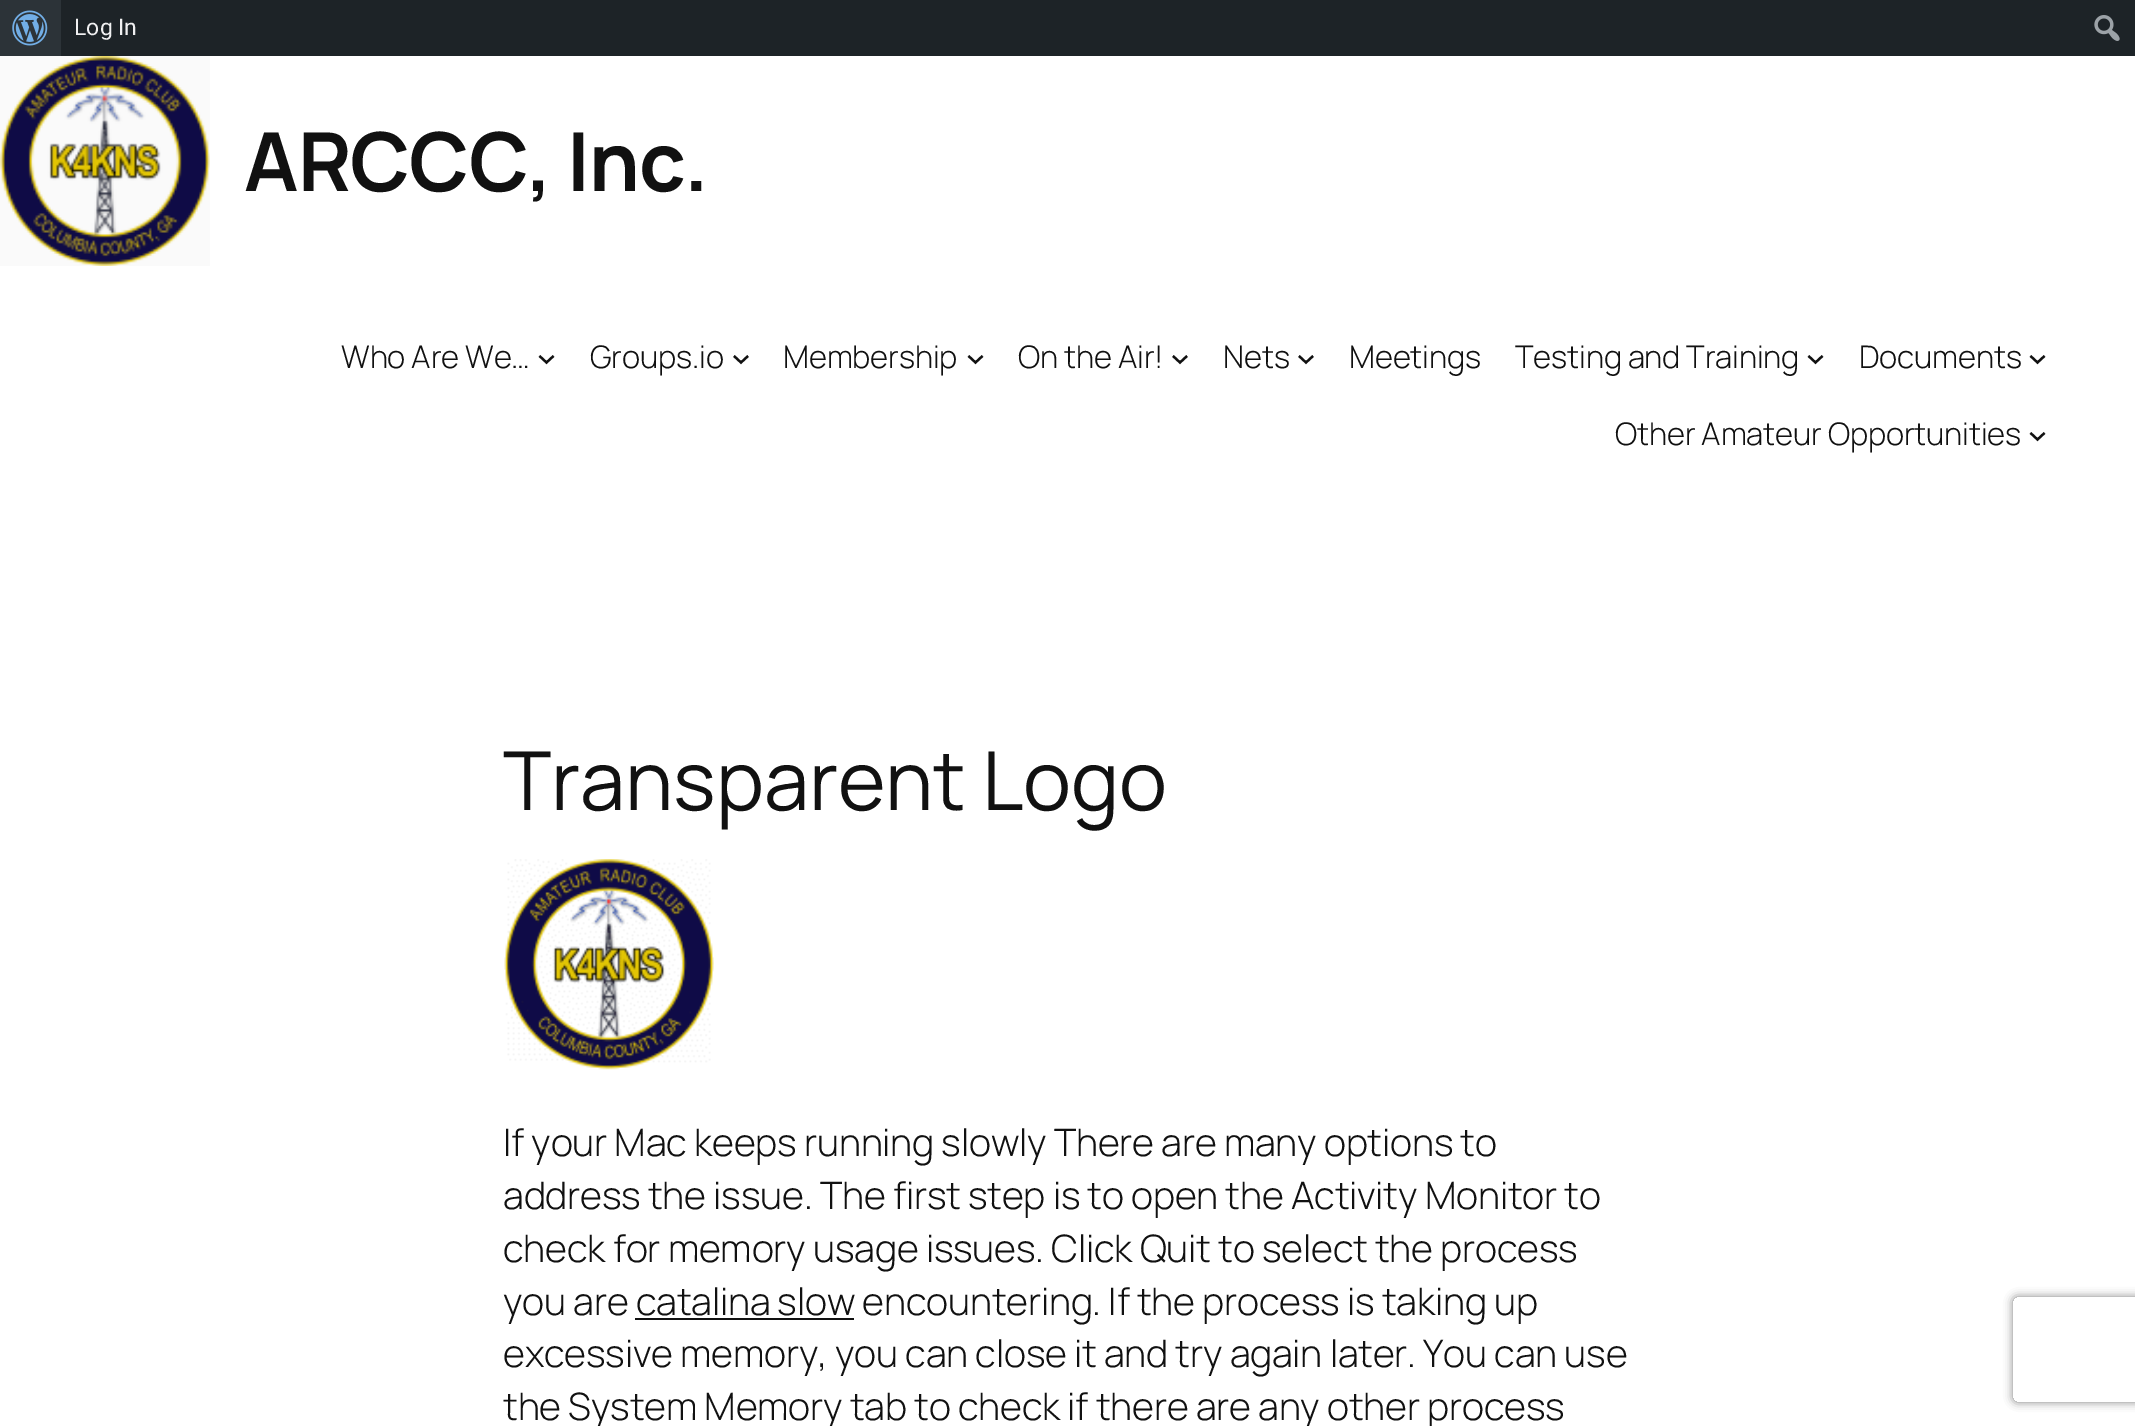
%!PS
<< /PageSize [2135 1426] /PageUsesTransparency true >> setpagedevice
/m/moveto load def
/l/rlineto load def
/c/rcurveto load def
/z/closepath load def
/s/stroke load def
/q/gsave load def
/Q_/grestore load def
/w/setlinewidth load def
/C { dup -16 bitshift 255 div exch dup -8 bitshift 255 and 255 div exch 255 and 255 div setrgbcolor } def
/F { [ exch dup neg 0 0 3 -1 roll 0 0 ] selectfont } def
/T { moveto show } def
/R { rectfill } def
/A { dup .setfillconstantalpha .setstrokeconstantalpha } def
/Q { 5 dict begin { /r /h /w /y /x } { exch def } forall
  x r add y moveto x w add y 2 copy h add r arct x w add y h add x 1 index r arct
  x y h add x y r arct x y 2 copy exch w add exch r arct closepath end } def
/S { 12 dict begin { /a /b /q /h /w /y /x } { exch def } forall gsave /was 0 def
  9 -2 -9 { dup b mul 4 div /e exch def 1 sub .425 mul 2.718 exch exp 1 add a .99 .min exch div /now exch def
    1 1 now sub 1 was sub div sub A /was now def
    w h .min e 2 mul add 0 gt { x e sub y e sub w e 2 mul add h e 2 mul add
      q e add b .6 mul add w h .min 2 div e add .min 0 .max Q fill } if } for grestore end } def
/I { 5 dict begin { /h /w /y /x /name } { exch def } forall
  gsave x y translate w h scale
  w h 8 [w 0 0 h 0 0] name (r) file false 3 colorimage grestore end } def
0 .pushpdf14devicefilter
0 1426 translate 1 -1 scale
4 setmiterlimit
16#FFFFFF C
0 0 2135 1426 R
16#1D2327 C
61 0 2074 56 R
16#2C3338 C
0 0 61 56 R
(1.rgb) 12 10 36 36 I
/Roboto-Regular 23 F
16#F0F0F1 C
(Log In) 74 35 T
(2.rgb) 2094 15 26 26 I
(3.rgb) 0 56 210 210 I
/Manrope-Bold 81.25 F
16#111111 C
244 191 m -.9 0 (ARCCC, Inc.) ashow
/Manrope-Light 31.1 F
341 368 m -.18 0 (Who Are We…) ashow
2.3 w
539.5 356 m 7 6.5 l 7 -6.5 l s
590 368 m -.18 0 (Groups.io) ashow
734 356 m 7 6.5 l 7 -6.5 l s
783 368 m -.18 0 (Membership) ashow
968.5 356 m 7 6.5 l 7 -6.5 l s
1018 368 m -.18 0 (On the Air!) ashow
1173 356 m 7 6.5 l 7 -6.5 l s
1223 368 m -.18 0 (Nets) ashow
1299 356 m 7 6.5 l 7 -6.5 l s
1349 368 m -.18 0 (Meetings) ashow
1515 368 m -.18 0 (Testing and Training) ashow
1808.5 356 m 7 6.5 l 7 -6.5 l s
1859 368 m -.18 0 (Documents) ashow
2030.5 356 m 7 6.5 l 7 -6.5 l s
1615 445 m -.18 0 (Other Amateur Opportunities) ashow
2030.5 433 m 7 6.5 l 7 -6.5 l s
/Manrope-Regular 81.25 F
503 810 m -.18 0 (Transparent Logo) ashow
(4.rgb) 504 859 210 211 I
/Manrope-Light 37.7 F
503 1156 m -.18 0 (If your Mac keeps running slowly There are many options to) ashow
503 1209 m -.18 0 (address the issue. The first step is to open the Activity Monitor to) ashow
503 1262 m -.18 0 (check for memory usage issues. Click Quit to select the process) ashow
503 1315 m -.18 0 (you are catalina slow encountering. If the process is taking up) ashow
635 1318 219 2 R
503 1367 m -.18 0 (excessive memory, you can close it and try again later. You can use) ashow
503 1420 m -.18 0 (the System Memory tab to check if there are any other process) ashow
q
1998 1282 m 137 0 l 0 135 l -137 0 l z 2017 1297 m 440 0 l 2 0 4 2 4 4 c 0 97 l 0 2 -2 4 -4 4 c -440 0 l -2 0 -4 -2 -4 -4 c 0 -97 l 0 -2 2 -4 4 -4 c z eoclip newpath
16#808080 C
2013 1297 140 105 4 4.5 1 S
Q_
.poppdf14devicefilter showpage
